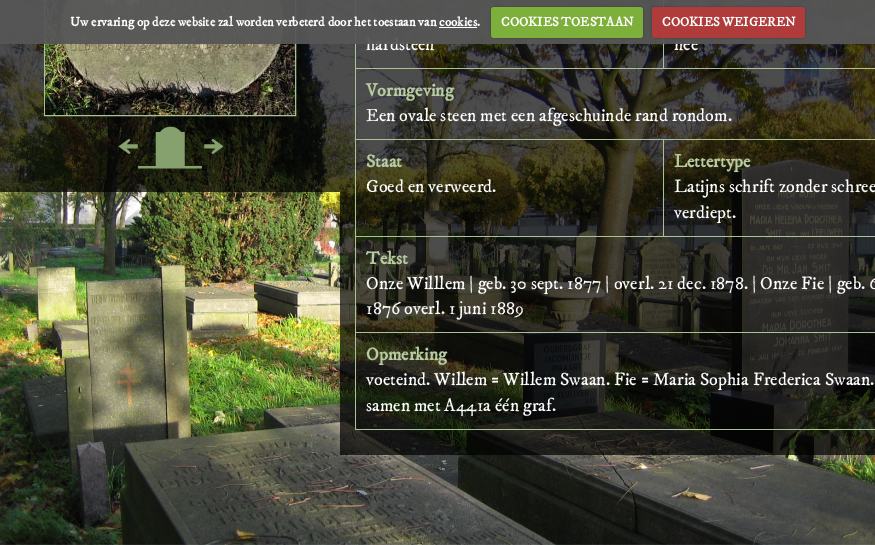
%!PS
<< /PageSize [875 545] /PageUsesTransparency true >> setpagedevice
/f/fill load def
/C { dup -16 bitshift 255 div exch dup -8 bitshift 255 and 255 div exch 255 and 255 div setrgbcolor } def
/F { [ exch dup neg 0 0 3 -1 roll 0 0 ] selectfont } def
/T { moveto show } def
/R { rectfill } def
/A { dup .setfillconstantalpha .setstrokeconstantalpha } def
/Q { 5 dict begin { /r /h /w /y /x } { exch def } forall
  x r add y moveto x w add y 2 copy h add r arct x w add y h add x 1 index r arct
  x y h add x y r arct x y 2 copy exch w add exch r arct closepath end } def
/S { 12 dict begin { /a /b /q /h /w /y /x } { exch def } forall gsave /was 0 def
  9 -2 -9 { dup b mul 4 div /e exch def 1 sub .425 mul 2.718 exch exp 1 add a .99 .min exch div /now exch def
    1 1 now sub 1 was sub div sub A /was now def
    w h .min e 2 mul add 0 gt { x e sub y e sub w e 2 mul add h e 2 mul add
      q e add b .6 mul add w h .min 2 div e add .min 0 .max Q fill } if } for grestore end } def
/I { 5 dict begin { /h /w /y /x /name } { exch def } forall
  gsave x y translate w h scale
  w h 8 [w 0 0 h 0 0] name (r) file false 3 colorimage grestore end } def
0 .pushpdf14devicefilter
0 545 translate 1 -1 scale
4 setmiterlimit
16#FFFFFF C
0 0 875 545 R
(1.rgb) 0 0 875 545 I
0.7 A
16#000000 C
0 0 340 192 R
1 A
16#ABC294 C
44.5 -.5 251 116 rectstroke
(2.rgb) 45 0 250 115 I
0.7 A
16#000000 C
340 0 535 455 R
/IMFELLDWPica-Regular 18 F
1 A
16#FFFFFF C
(hardsteen) 366 50 T
16#ABC294 C
355 68 520 1 R
663 0 1 69 R
16#FFFFFF C
(nee) 674 50 T
16#ABC294 C
663 139 212 1 R
355 236 520 1 R
663 139 1 98 R
355 139 309 1 R
355 332 520 1 R
355 429 520 1 R
355 332 1 98 R
355 236 1 97 R
355 139 1 98 R
355 0 1 140 R
0.95 A
16#565656 C
0 0 875 44 R
/IMFELLDWPica-Bold 13 F
1 A
16#FFFFFF C
(Uw ervaring op deze website zal worden verbeterd door het toestaan van cookies.) 70 26 T
16#000000 C
491 7 152 31 3 1 .25 S
16#7DAF3B C
491 7 152 31 3 Q f
16#FFFFFF C
(COOKIES TOESTAAN) 501 26 T
16#000000 C
652 7 153 31 3 1 .25 S
16#AF3B3B C
652 7 153 31 3 Q f
16#FFFFFF C
(COOKIES WEIGEREN) 662 26 T
439 27 38 1 R
(3.rgb) 118 138 20 16 I
(4.rgb) 138 126 64 43 I
(5.rgb) 204 138 19 16 I
/IMFELLDWPica-Bold 18 F
16#B8CCA2 C
(Vormgeving) 366 96 T
/IMFELLDWPica-Regular 18 F
16#FFFFFF C
(Een ovale steen met een afgeschuinde rand rondom.) 366 121 T
/IMFELLDWPica-Bold 18 F
16#B8CCA2 C
(Staat) 366 167 T
/IMFELLDWPica-Regular 18 F
16#FFFFFF C
(Goed en verweerd.) 366 192 T
/IMFELLDWPica-Bold 18 F
16#B8CCA2 C
(Lettertype) 674 167 T
/IMFELLDWPica-Regular 18 F
16#FFFFFF C
(Latijns schrift zonder schree) 674 192 T
(verdiept.) 674 218 T
/IMFELLDWPica-Bold 18 F
16#B8CCA2 C
(Tekst) 366 264 T
/IMFELLDWPica-Regular 18 F
16#FFFFFF C
(Onze Willlem | geb. 30 sept. 1877 | overl. 21 dec. 1878. | Onze Fie | geb. 6) 366 289 T
(1876 overl. 1 juni 1889) 366 314 T
/IMFELLDWPica-Bold 18 F
16#B8CCA2 C
(Opmerking) 366 360 T
/IMFELLDWPica-Regular 18 F
16#FFFFFF C
(voeteind. Willem = Willem Swaan. Fie = Maria Sophia Frederica Swaan.) 366 385 T
(samen met A441a één graf.) 366 411 T
.poppdf14devicefilter showpage
